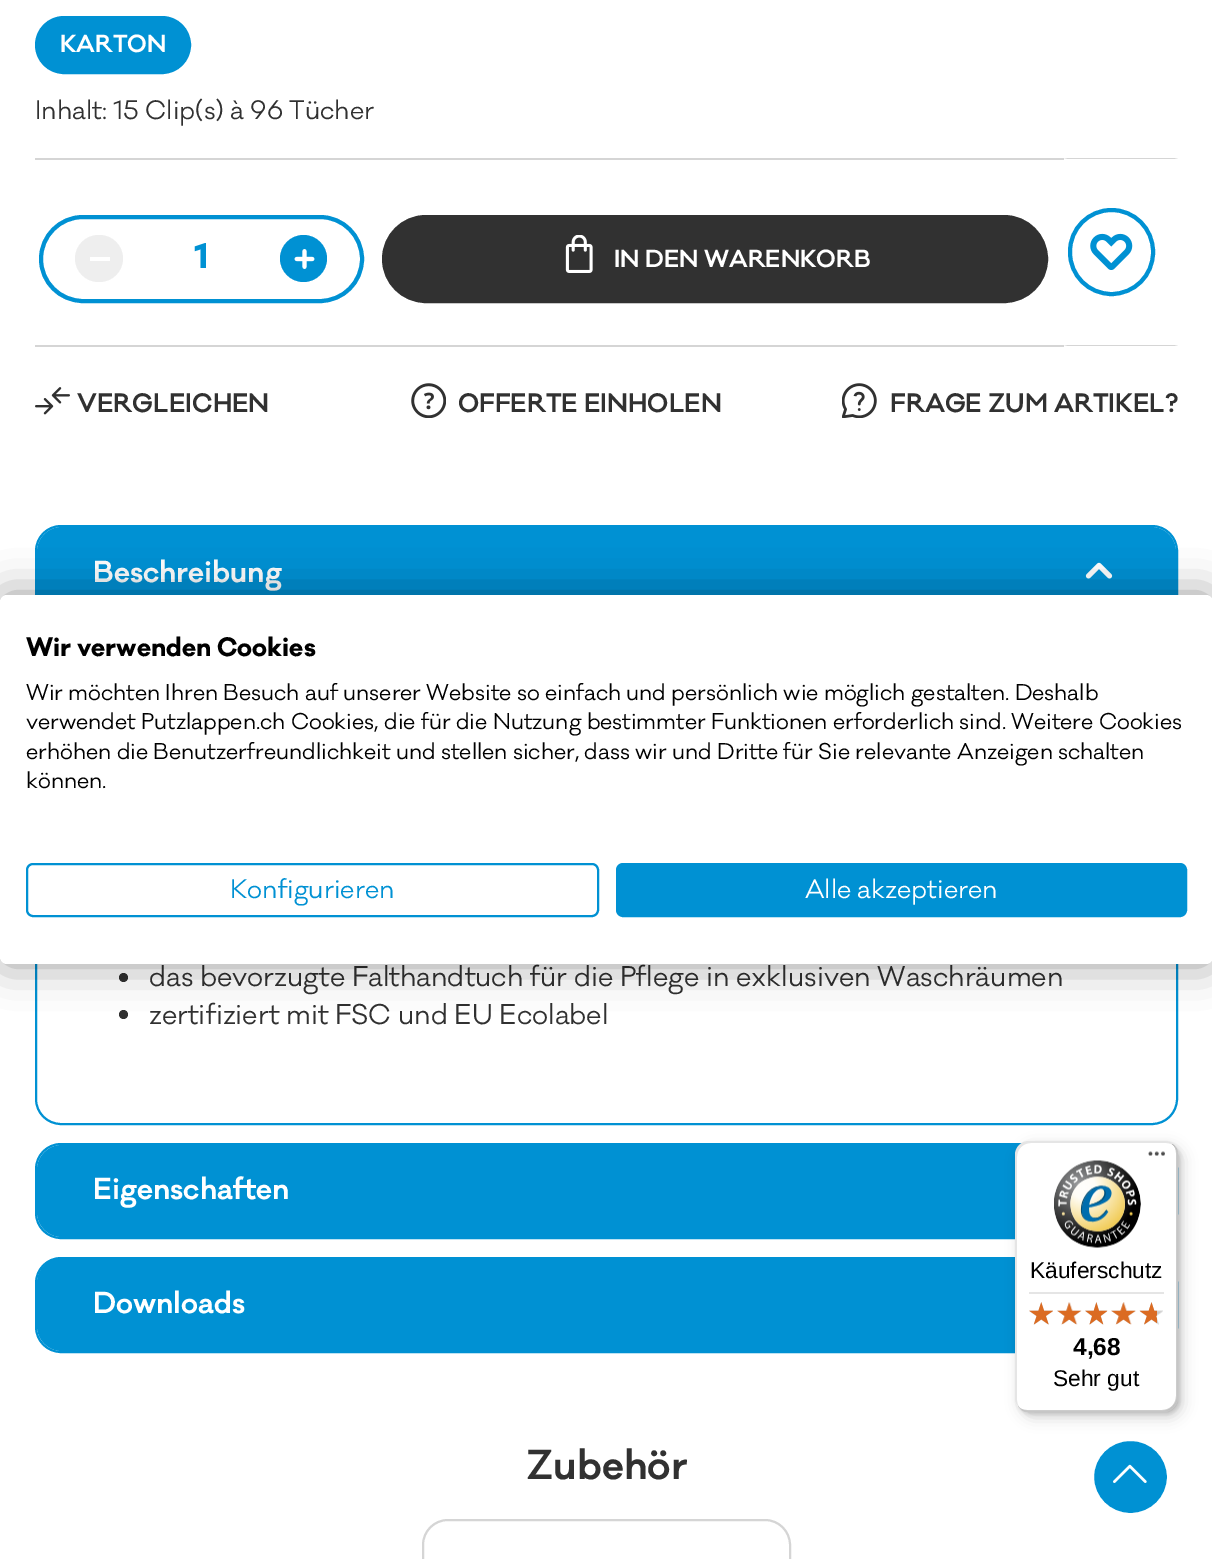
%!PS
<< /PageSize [1212 1559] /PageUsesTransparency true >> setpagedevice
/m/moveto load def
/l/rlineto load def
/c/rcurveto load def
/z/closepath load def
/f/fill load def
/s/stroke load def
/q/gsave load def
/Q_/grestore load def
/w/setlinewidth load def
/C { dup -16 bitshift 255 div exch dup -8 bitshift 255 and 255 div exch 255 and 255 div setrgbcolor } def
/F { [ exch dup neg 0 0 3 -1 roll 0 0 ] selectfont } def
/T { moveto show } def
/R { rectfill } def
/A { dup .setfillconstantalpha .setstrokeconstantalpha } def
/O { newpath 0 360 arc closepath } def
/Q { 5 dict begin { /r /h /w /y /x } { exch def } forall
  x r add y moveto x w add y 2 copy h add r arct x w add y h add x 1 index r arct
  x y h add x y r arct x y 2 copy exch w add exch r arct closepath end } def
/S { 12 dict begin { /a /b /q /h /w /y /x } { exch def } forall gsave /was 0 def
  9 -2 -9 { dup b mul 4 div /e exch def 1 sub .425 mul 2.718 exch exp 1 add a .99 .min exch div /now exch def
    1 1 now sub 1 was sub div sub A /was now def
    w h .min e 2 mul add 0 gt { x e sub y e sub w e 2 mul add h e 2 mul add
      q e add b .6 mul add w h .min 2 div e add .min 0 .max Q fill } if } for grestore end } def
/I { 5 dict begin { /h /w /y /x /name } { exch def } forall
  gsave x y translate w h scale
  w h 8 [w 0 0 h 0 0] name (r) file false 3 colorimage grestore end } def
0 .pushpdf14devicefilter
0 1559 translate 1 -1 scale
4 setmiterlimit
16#FFFFFF C
0 0 1212 1559 R
16#0091D3 C
37 18 152 54 27 Q q f Q_
4 w
s
/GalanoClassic-SemiBold 22.75 F
16#FFFFFF C
(KARTON) 60 52 T
/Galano-Regular 24.5 F
16#313131 C
(Inhalt: 15 Clip\(s\) à 96 Tücher) 35 119 T
16#D5D5D5 C
35 158 1029 2 R
35 345 1029 2 R
16#0091D3 C
41 217 321 84 42 Q s
16#EEEEEE C
75 235 48 47 23.5 Q f
16#FFFFFF C
90 257 20 4 R
/Galano-Bold 33 F
16#0091D3 C
(1) 194 268 T
303.5 258.5 23.5 O f
(1.rgb) 294 249 21 20 I
16#313131 C
384 217 662 84 42 Q q f Q_
s
(2.rgb) 565 235 28 38 I
/GalanoClassic-SemiBold 22.75 F
16#FFFFFF C
(IN DEN WARENKORB) 614 267 T
16#D5D5D5 C
1064 158 m 114 0 l -4 1 l -106 0 l z f
1178 346 m -114 0 l 4 -1 l 106 0 l z f
16#0091D3 C
1070 210 83 84 41.5 Q s
(3.rgb) 1090 233 43 37 I
(4.rgb) 35 387 35 28 I
/GalanoClassic-SemiBold 24.5 F
16#313131 C
(VERGLEICHEN) 77 412 T
(5.rgb) 411 383 35 35 I
(OFFERTE EINHOLEN) 458 412 T
(6.rgb) 842 383 35 35 I
(FRAGE ZUM ARTIKEL?) 890 412 T
16#0091D3 C
2 w
36 526 1141 598 25 Q s
62 527 m 1089 0 l 14 0 25 11 25 25 c 0 68 l -1139 0 l 0 -68 l 0 -14 11 -25 25 -25 c z f
q
93 543 1027 59 29.5 Q clip newpath
/GalanoClassic-SemiBold 28 F
16#FFFFFF C
(Beschreibung) 93 582 T
Q_
(7.rgb) 1085 562 28 17 I
16#313131 C
123.5 977.5 4.5 O f
/Galano-Regular 26.25 F
(das bevorzugte Falthandtuch für die Pflege in exklusiven Waschräumen) 149 986 T
123.5 1014.5 4.5 O f
(zertifiziert mit FSC und EU Ecolabel) 149 1024 T
16#0091D3 C
36 1144 1141 94 25 Q s
37 1145 1139 92 25 Q f
q
93 1160 1027 60 30 Q clip newpath
/GalanoClassic-SemiBold 28 F
16#FFFFFF C
(Eigenschaften) 93 1199 T
Q_
36 1258 1141 94 25 Q s
37 1258 1139 93 25 Q f
q
93 1274 1027 60 30 Q clip newpath
/GalanoClassic-SemiBold 28 F
16#FFFFFF C
(Downloads) 93 1313 T
Q_
/GalanoClassic-SemiBold 38.5 F
16#313131 C
(Zubehör) 526 1479 T
16#D5D5D5 C
423 1520 367 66 25 Q s
16#000000 C
0 595 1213 369 7 21 .4 S
16#FFFFFF C
0 595 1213 369 7 Q f
/Galano-Bold 24.5 F
16#000000 C
(Wir verwenden Cookies) 26 656 T
/Galano-Regular 21 F
(Wir möchten Ihren Besuch auf unserer Website so einfach und persönlich wie möglich gestalten. Deshalb) 26 700 T
(verwendet Putzlappen.ch Cookies, die für die Nutzung bestimmter Funktionen erforderlich sind. Weitere Cookies) 26 729 T
(erhöhen die Benutzerfreundlichkeit und stellen sicher, dass wir und Dritte für Sie relevante Anzeigen schalten) 26 759 T
(können.) 26 788 T
16#0091D3 C
27 864 571 52 6 Q s
/Galano-Regular 24.5 F
(Konfigurieren) 230 898 T
617 864 569 52 6 Q q f Q_
s
16#FFFFFF C
(Alle akzeptieren) 805 898 T
16#0091D3 C
1092 1439 77 76 38 Q q f Q_
16#FFFFFF C
4 w
s
16#000000 C
1020 1146 163 272 14 7 .15 S
1017 1143 163 271 14 2 .15 S
16#FFFFFF C
1015 1141 163 271 14 Q f
0.1 A
16#000000 C
1031 1143 m 135 0 l 3 0 7 1 9 4 c -2 -4 -6 -6 -11 -6 c -135 0 l -8 0 -14 6 -14 14 c 0 243 l 0 4 2 8 5 10 c -2 -2 -3 -5 -3 -8 c 0 -243 l 0 -8 6 -14 14 -14 c z f
0.2 A
1018 1406 m 2 4 6 6 11 6 c 135 0 l 8 0 14 -6 14 -14 c 0 -243 l 0 -5 -2 -9 -6 -11 c 3 2 4 6 4 9 c 0 243 l 0 8 -6 14 -14 14 c -135 0 l -3 0 -7 -1 -9 -4 c z f
16#323232 C
1020 1408 m 2 3 5 4 9 4 c 135 0 l 8 0 14 -6 14 -14 c 0 -243 l 0 -5 -2 -9 -6 -11 c 3 2 5 6 5 10 c 0 243 l 0 8 -7 14 -14 14 c -135 0 l -3 0 -6 -1 -8 -3 c z f
0.3 A
16#FFFFFF C
1020 1408 m 2 3 5 4 9 4 c 135 0 l 8 0 14 -6 14 -14 c 0 -243 l 0 -4 -1 -7 -4 -9 c 2 2 3 5 3 8 c 0 243 l 0 8 -6 14 -14 14 c -135 0 l -3 0 -6 -1 -8 -3 c z f
1 A
(8.rgb) 1148 1151 17 5 I
(9.rgb) 1054 1160 87 88 I
/LiberationSans-Regular 22.75 F
16#000000 C
(Käuferschutz) 1030 1278 T
16#E5E5E5 C
1029 1292 135 2 R
(10.rgb) 1029 1302 24 23 I
(11.rgb) 1057 1302 24 23 I
(12.rgb) 1085 1302 22 23 I
(13.rgb) 1111 1302 25 23 I
(14.rgb) 1140 1302 23 23 I
(15.rgb) 1029 1302 24 23 I
(16.rgb) 1057 1302 25 23 I
(17.rgb) 1085 1302 23 23 I
(18.rgb) 1111 1302 25 23 I
(19.rgb) 1139 1302 18 23 I
/LiberationSans-Bold 24.5 F
16#000000 C
(4,68) 1073 1355 T
/LiberationSans-Regular 22.75 F
(Sehr gut) 1053 1386 T
(20.rgb) 1113 1464 34 19 I
.poppdf14devicefilter showpage
